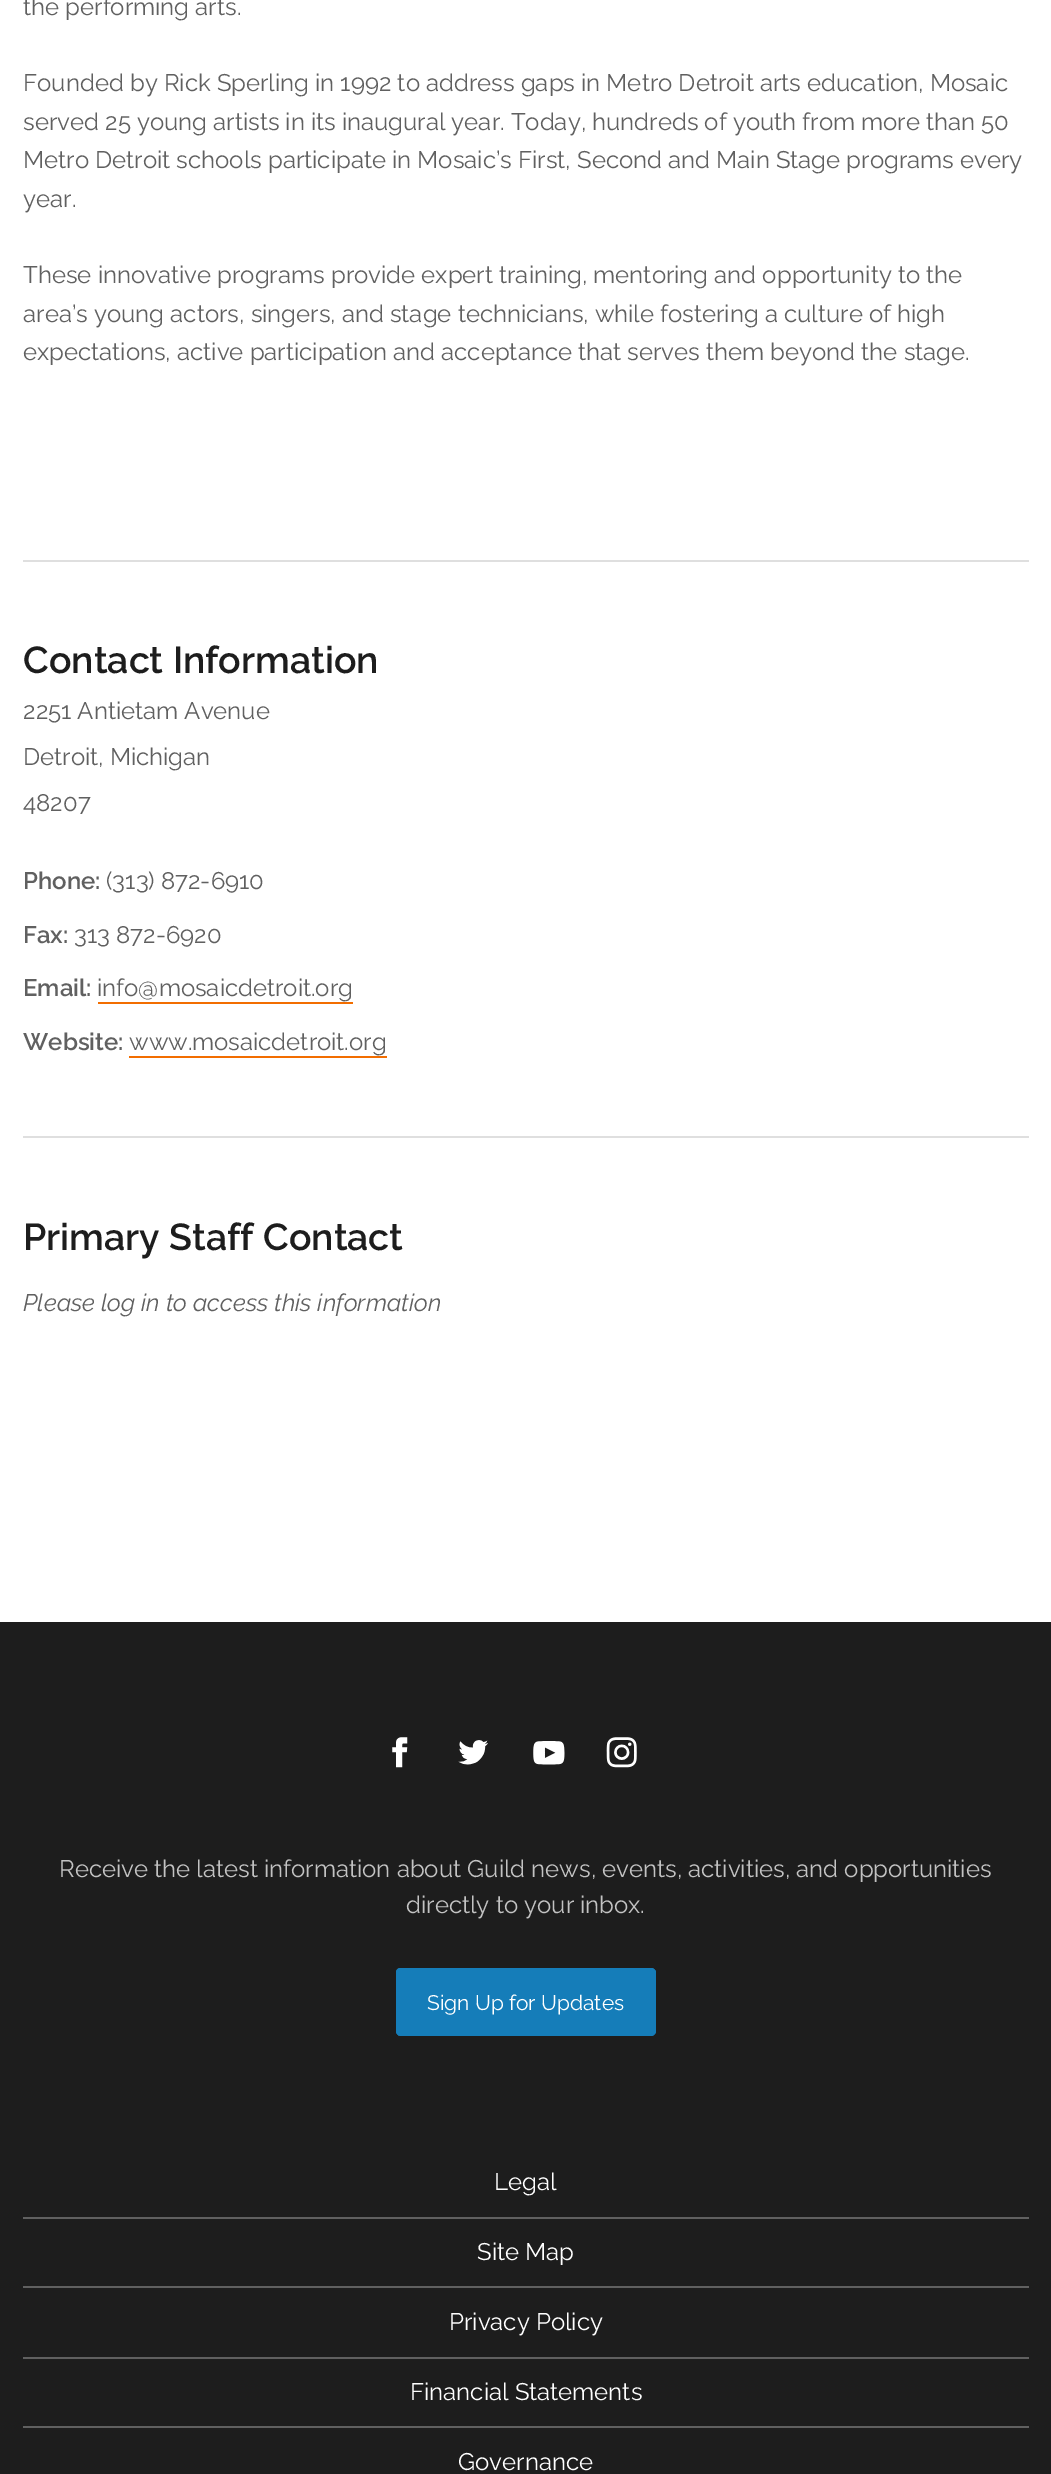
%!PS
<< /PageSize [1051 2474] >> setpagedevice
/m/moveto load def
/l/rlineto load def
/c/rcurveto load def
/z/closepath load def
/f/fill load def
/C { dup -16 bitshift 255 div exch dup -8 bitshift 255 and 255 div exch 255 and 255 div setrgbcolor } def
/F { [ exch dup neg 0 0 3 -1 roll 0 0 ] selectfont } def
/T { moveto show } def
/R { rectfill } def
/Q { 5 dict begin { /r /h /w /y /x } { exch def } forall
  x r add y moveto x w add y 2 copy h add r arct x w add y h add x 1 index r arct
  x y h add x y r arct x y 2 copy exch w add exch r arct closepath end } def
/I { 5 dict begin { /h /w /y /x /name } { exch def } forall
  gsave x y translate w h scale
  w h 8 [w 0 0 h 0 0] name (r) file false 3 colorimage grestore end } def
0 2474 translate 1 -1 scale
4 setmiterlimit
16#FFFFFF C
0 0 1051 2474 R
/Raleway-Regular 24 F
16#606060 C
(the performing arts.) 23 15 T
(Founded by Rick Sperling in 1992 to address gaps in Metro Detroit arts education, Mosaic) 23 91 T
(served 25 young artists in its inaugural year. Today, hundreds of youth from more than 50) 23 130 T
(Metro Detroit schools participate in Mosaic’s First, Second and Main Stage programs every) 23 168 T
(year.) 23 207 T
(These innovative programs provide expert training, mentoring and opportunity to the) 23 283 T
(area’s young actors, singers, and stage technicians, while fostering a culture of high) 23 322 T
(expectations, active participation and acceptance that serves them beyond the stage.) 23 360 T
16#DFDFDF C
23 560 1006 2 R
/Raleway-SemiBold 37.5 F
16#1D1D1D C
(Contact Information) 23 673 T
/Raleway-Regular 24 F
16#606060 C
(2251 Antietam Avenue) 23 719 T
(Detroit, Michigan) 23 765 T
(48207) 23 811 T
/Raleway-SemiBold 24 F
(Phone:) 23 889 T
/Raleway-Regular 24 F
(\(313\) 872-6910) 106 889 T
/Raleway-SemiBold 24 F
(Fax:) 23 943 T
/Raleway-Regular 24 F
(313 872-6920) 74 943 T
/Raleway-SemiBold 24 F
(Email:) 23 996 T
/Raleway-Regular 24 F
(info@mosaicdetroit.org) 97 996 T
16#F26D00 C
98 1002 255 2 R
/Raleway-SemiBold 24 F
16#606060 C
(Website:) 23 1050 T
/Raleway-Regular 24 F
(www.mosaicdetroit.org) 129 1050 T
16#F26D00 C
129 1056 258 2 R
16#DFDFDF C
23 1136 1006 2 R
/Raleway-SemiBold 37.5 F
16#1D1D1D C
(Primary Staff Contact) 23 1250 T
/Raleway-ThinItalic 24 F
16#606060 C
(Please log in to access this information) 23 1311 T
16#1D1D1D C
0 1622 1051 852 R
(1.rgb) 392 1737 16 31 I
(2.rgb) 458 1740 30 25 I
(3.rgb) 533 1741 32 24 I
(4.rgb) 606 1737 31 31 I
/Raleway-Regular 24 F
16#C3C3C3 C
(Receive the latest information about Guild news, events, activities, and opportunities) 59 1877 T
(directly to your inbox.) 406 1913 T
16#157DB9 C
396 1968 260 68 5 Q f
400 1968 m 251 0 l 2 0 5 2 5 4 c 0 59 l 0 2 -3 5 -5 5 c -251 0 l -2 0 -4 -3 -4 -5 c 0 -59 l 0 -2 2 -4 4 -4 c z 400 1970 m 251 0 l 2 0 3 1 3 2 c 0 59 l 0 2 -1 5 -3 5 c -251 0 l -1 0 -2 -3 -2 -5 c 0 -59 l 0 -1 1 -2 2 -2 c z eofill
/Raleway-Regular 21 F
16#FFFFFF C
(Sign Up for Updates) 427 2010 T
16#606060 C
23 2217 1006 2 R
/Raleway-Regular 24 F
16#FFFFFF C
(Legal) 494 2190 T
16#606060 C
23 2286 1006 2 R
16#FFFFFF C
(Site Map) 477 2260 T
16#606060 C
23 2357 1006 2 R
16#FFFFFF C
(Privacy Policy) 449 2330 T
16#606060 C
23 2426 1006 2 R
16#FFFFFF C
(Financial Statements) 410 2400 T
(Governance) 458 2470 T
showpage
